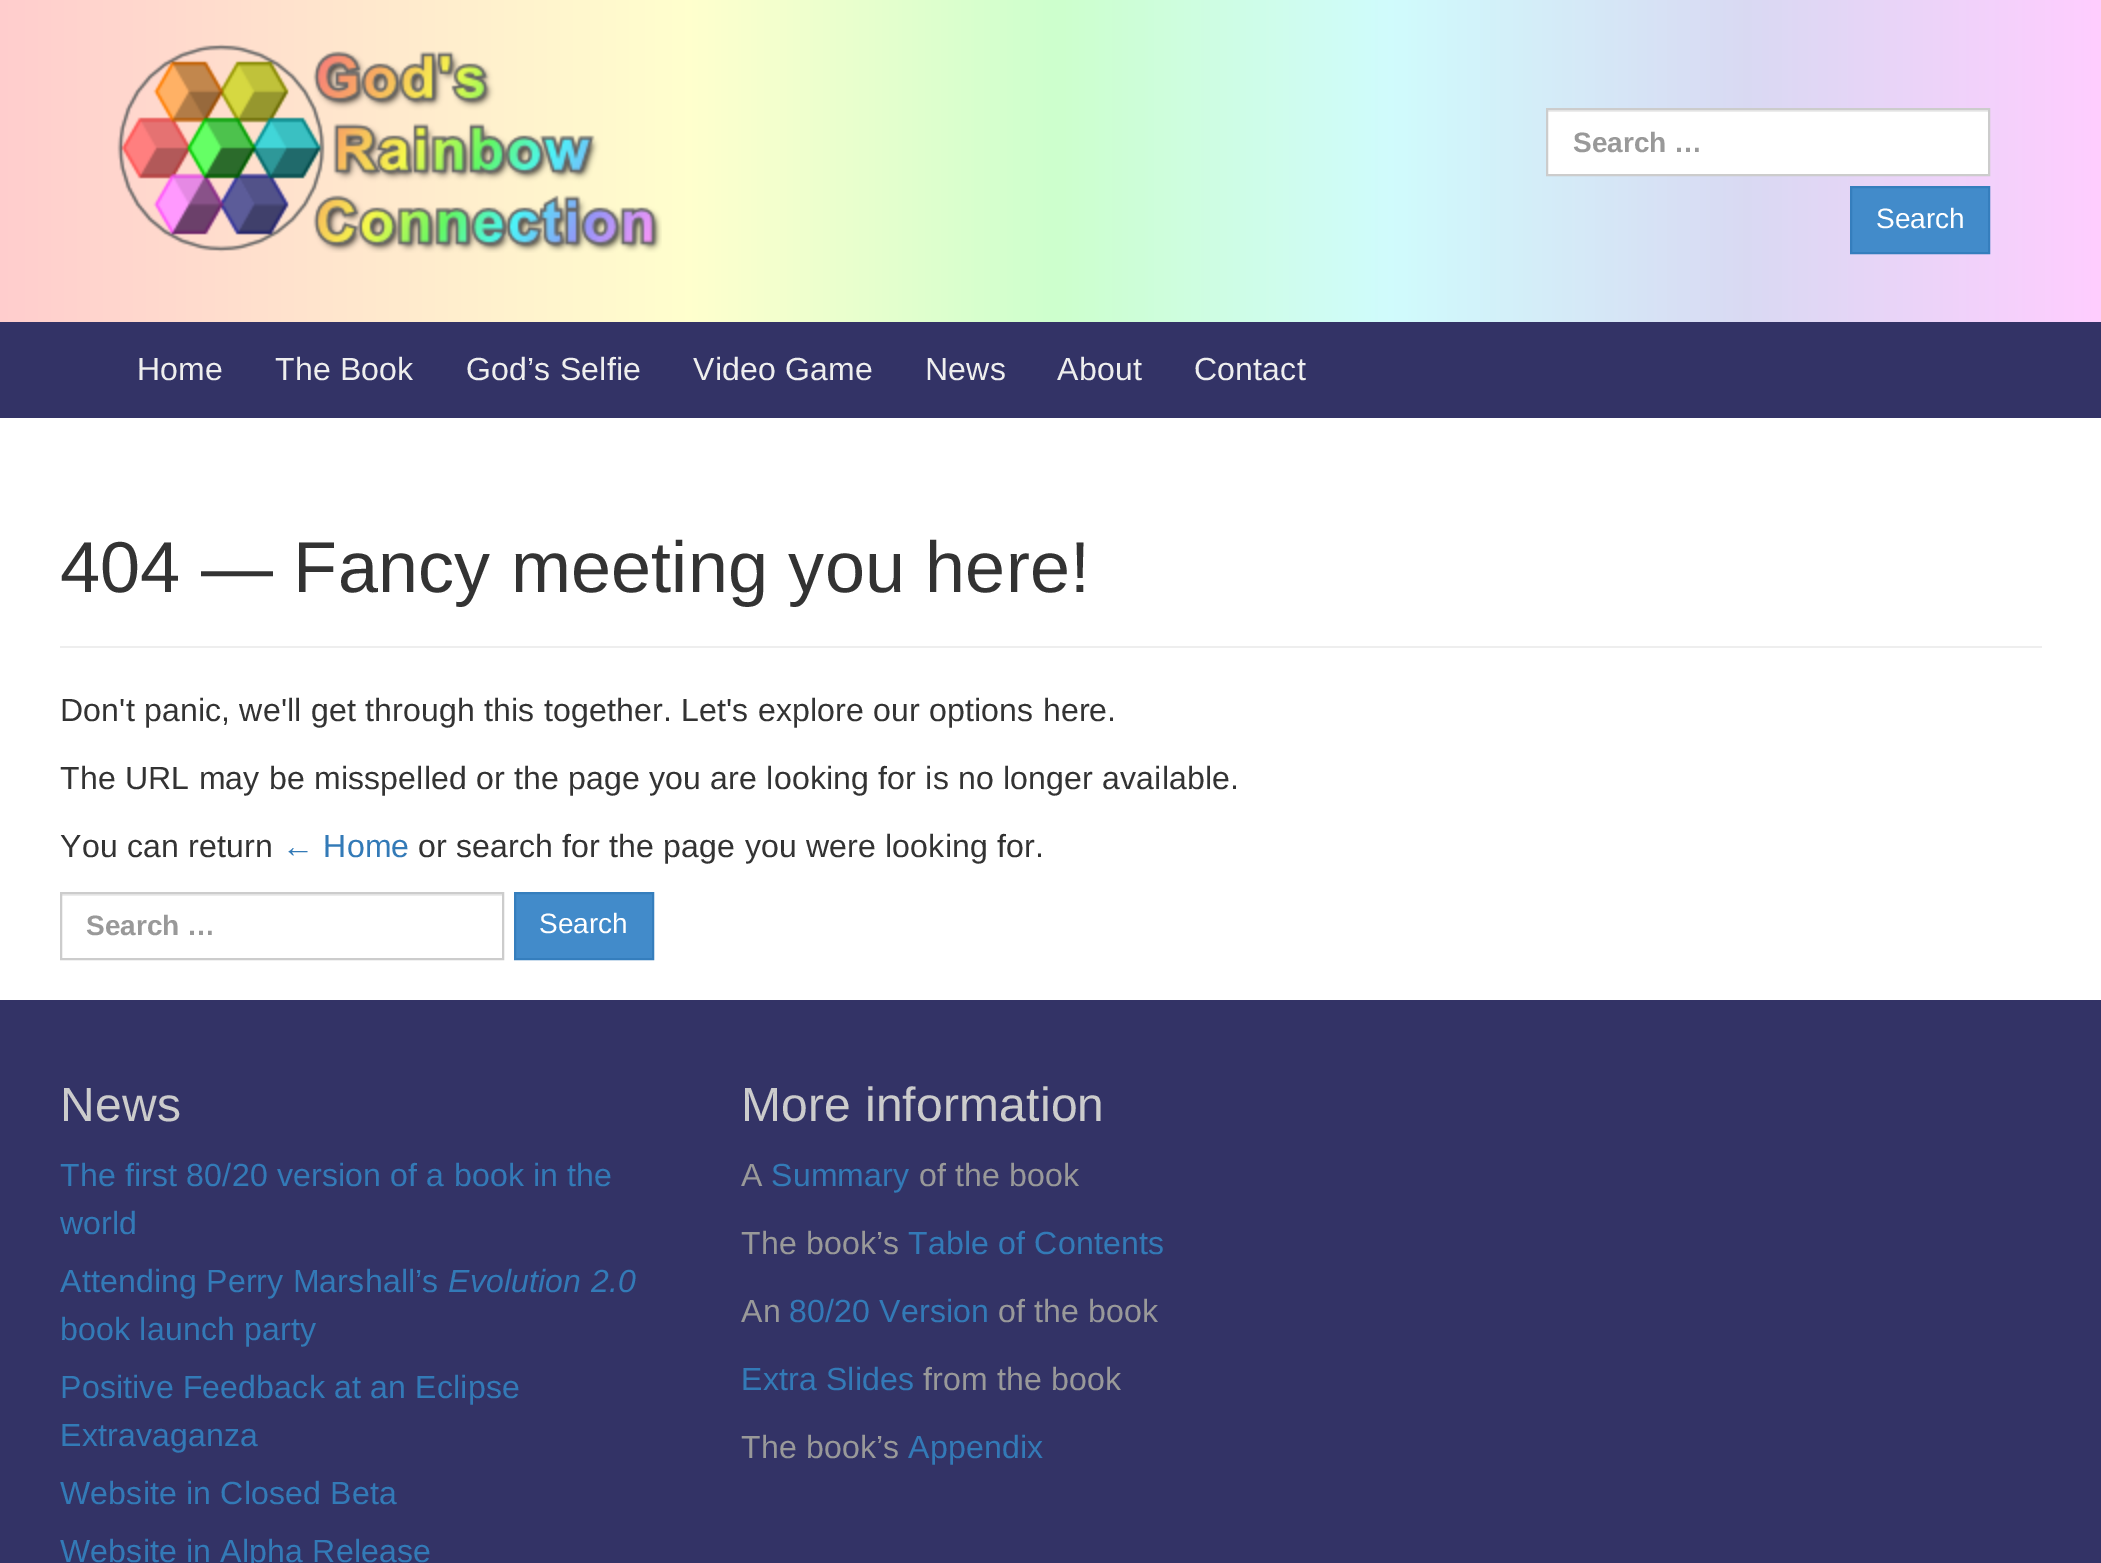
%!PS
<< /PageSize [2101 1563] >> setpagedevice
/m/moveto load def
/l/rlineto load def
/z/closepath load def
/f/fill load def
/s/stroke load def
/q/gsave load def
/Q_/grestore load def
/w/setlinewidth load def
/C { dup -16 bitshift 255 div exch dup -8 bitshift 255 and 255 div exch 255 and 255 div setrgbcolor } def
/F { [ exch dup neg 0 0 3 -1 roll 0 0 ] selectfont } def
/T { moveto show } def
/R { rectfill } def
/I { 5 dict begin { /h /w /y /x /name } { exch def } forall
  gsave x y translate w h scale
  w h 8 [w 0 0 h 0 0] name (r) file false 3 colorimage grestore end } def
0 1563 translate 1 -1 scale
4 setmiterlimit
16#FFFFFF C
0 0 2101 1563 R
(1.rgb) 0 0 2101 322 I
(2.rgb) 117 44 545 209 I
1548 112 440 62 R
16#ECECEC C
1548 110 440 2 R
16#CCCCCC C
2 w
1547 109 442 66 rectstroke
/LiberationSans-Bold 28 F
16#999999 C
(Search …) 1573 152 T
16#428BCA C
1851 187 m 138 0 l 0 66 l -138 0 l z q f Q_
16#357EBD C
s
/LiberationSans-Regular 28 F
16#FFFFFF C
(Search) 1876 228 T
16#333366 C
0 322 2101 96 R
/LiberationSans-Regular 32 F
16#EEEEEE C
137 380 m .2 0 (Home) ashow
275 380 m .2 0 (The Book) ashow
466 380 m .2 0 (God’s Selfie) ashow
693 380 m .2 0 (Video Game) ashow
925 380 m .2 0 (News) ashow
1057 380 m .2 0 (About) ashow
1194 380 m .2 0 (Contact) ashow
60 646 1982 2 R
/LiberationSans-Regular 72 F
16#333333 C
60 592 m .2 0 (404 — Fancy meeting you here!) ashow
/LiberationSans-Regular 32 F
60 721 m .2 0 (Don't panic, we'll get through this together. Let's explore our options here.) ashow
60 789 m .2 0 (The URL may be misspelled or the page you are looking for is no longer available.) ashow
60 857 m .2 0 (You can return) ashow
16#337AB7 C
282 857 m .2 0 (← Home) ashow
16#333333 C
418 857 m .2 0 (or search for the page you were looking for.) ashow
16#ECECEC C
62 894 440 2 R
16#CCCCCC C
61 893 442 66 rectstroke
/LiberationSans-Bold 28 F
16#999999 C
(Search …) 86 935 T
16#428BCA C
515 893 m 138 0 l 0 66 l -138 0 l z q f Q_
16#357EBD C
s
/LiberationSans-Regular 28 F
16#FFFFFF C
(Search) 539 933 T
16#333366 C
0 1000 2101 563 R
/LiberationSans-Regular 48 F
16#CCCCCC C
60 1121 m .2 0 (News) ashow
/LiberationSans-Regular 32 F
16#337AB7 C
60 1186 m .2 0 (The first 80/20 version of a book in the) ashow
60 1234 m .2 0 (world) ashow
60 1292 m .2 0 (Attending Perry Marshall’s) ashow
/LiberationSans-Italic 32 F
448 1292 m .2 0 (Evolution 2.0) ashow
/LiberationSans-Regular 32 F
60 1340 m .2 0 (book launch party) ashow
60 1398 m .2 0 (Positive Feedback at an Eclipse) ashow
60 1446 m .2 0 (Extravaganza) ashow
60 1504 m .2 0 (Website in Closed Beta) ashow
60 1562 m .2 0 (Website in Alpha Release) ashow
/LiberationSans-Regular 48 F
16#CCCCCC C
741 1121 m .2 0 (More information) ashow
/LiberationSans-Regular 32 F
16#999999 C
741 1186 m .2 0 (A) ashow
16#337AB7 C
771 1186 m .2 0 (Summary) ashow
16#999999 C
919 1186 m .2 0 (of the book) ashow
741 1254 m .2 0 (The book’s) ashow
16#337AB7 C
908 1254 m .2 0 (Table of Contents) ashow
16#999999 C
741 1322 m .2 0 (An) ashow
16#337AB7 C
789 1322 m .2 0 (80/20 Version) ashow
16#999999 C
998 1322 m .2 0 (of the book) ashow
16#337AB7 C
741 1390 m .2 0 (Extra Slides) ashow
16#999999 C
923 1390 m .2 0 (from the book) ashow
741 1458 m .2 0 (The book’s) ashow
16#337AB7 C
908 1458 m .2 0 (Appendix) ashow
showpage
